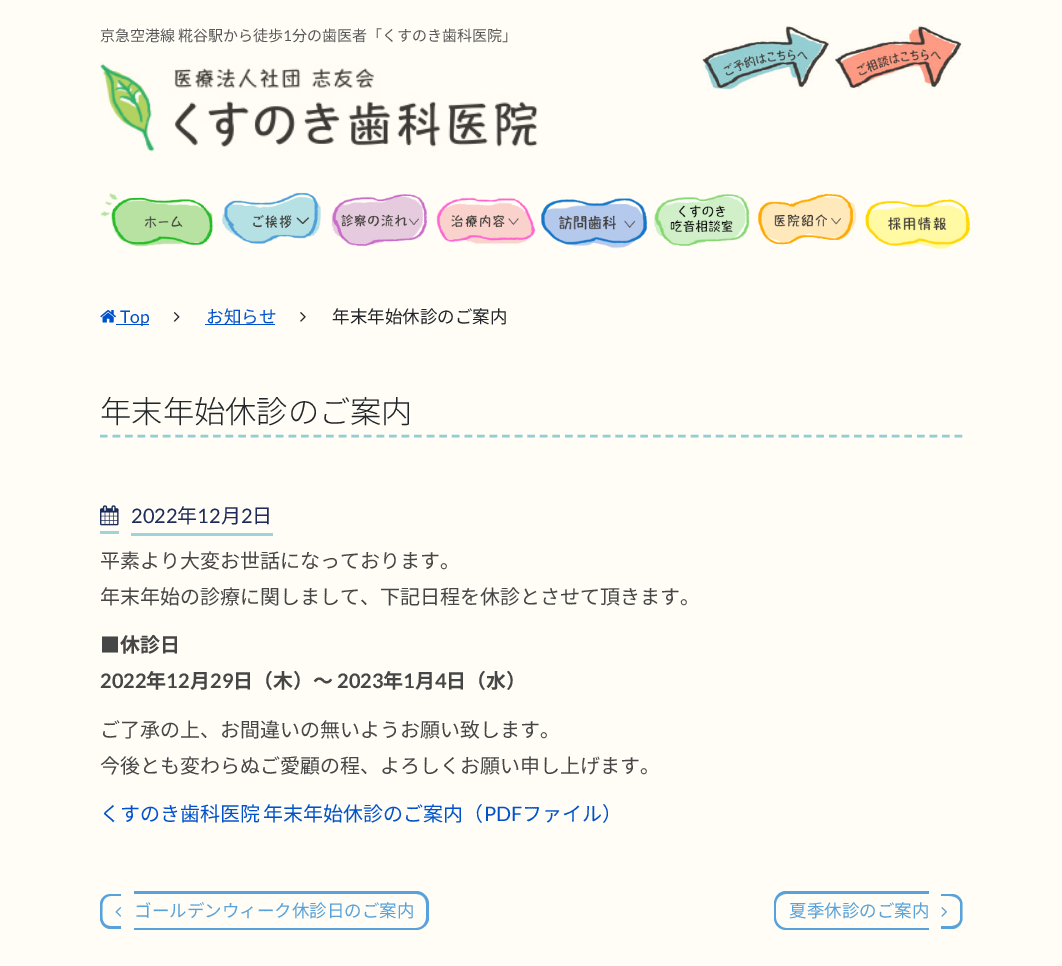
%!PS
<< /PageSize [1062 966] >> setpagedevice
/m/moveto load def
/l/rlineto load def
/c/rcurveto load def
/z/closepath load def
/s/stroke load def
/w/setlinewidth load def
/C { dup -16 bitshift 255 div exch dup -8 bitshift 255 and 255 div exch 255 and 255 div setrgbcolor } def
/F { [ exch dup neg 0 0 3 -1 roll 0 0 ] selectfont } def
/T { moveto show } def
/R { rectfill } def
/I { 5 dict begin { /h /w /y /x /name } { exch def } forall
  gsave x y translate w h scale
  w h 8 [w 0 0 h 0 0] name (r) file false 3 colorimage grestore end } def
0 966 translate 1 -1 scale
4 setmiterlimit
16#FFFDF5 C
0 0 1062 966 R
/NotoSansJP-Regular 15 F
16#585858 C
(京急空港線 糀谷駅から徒歩) 100 41 T
/Lato-Regular 15 F
(1) 283 41 T
/NotoSansJP-Regular 15 F
(分の歯医者「くすのき歯科医院」) 292 41 T
(1.rgb) 100 63 438 89 I
(2.rgb) 701 25 129 65 I
(3.rgb) 834 25 129 65 I
(4.rgb) 100 193 113 54 I
(5.rgb) 222 192 99 52 I
(6.rgb) 331 193 96 54 I
(7.rgb) 436 197 100 47 I
(8.rgb) 541 198 107 51 I
(9.rgb) 654 193 96 54 I
(10.rgb) 757 193 100 52 I
(11.rgb) 865 199 105 50 I
(12.rgb) 100 310 16 13 I
16#0052CC C
116 324 33 1 R
/Lato-Regular 17.5 F
(Top) 120 323 T
(13.rgb) 173 312 7 10 I
205 324 70 1 R
/NotoSansJP-Regular 17.5 F
(お知らせ) 206 323 T
(14.rgb) 300 312 6 10 I
16#212529 C
(年末年始休診のご案内) 332 323 T
16#94CED2 C
2.5 w
[7.5 5.07] 0 setdash
100 436 m 862.5 0 l s
/NotoSansJP-Light 31.25 F
16#212529 C
(年末年始休診のご案内) 100 423 T
(15.rgb) 100 505 19 21 I
/Lato-Regular 20 F
16#1E2C5B C
(2022) 131 523 T
16#9ED4D7 C
100 531 19 3 R
131 533 142 3 R
/NotoSansJP-Regular 20 F
16#1E2C5B C
(年) 177 523 T
/Lato-Regular 20 F
(12) 197 523 T
/NotoSansJP-Regular 20 F
(月) 221 523 T
/Lato-Regular 20 F
(2) 241 523 T
/NotoSansJP-Regular 20 F
(日) 252 523 T
16#464646 C
(平素より大変お世話になっております。) 100 568 T
(年末年始の診療に関しまして、下記日程を休診とさせて頂きます。) 100 604 T
/NotoSansJP-Bold 20 F
(■休診日) 100 652 T
/Lato-Bold 20 F
(2022) 100 688 T
/NotoSansJP-Bold 20 F
(年) 146 688 T
/Lato-Bold 20 F
(12) 166 688 T
/NotoSansJP-Bold 20 F
(月) 190 688 T
/Lato-Bold 20 F
(29) 210 688 T
/NotoSansJP-Bold 20 F
(日（木）～) 233 688 T
/Lato-Bold 20 F
(2023) 337 688 T
/NotoSansJP-Bold 20 F
(年) 383 688 T
/Lato-Bold 20 F
(1) 403 688 T
/NotoSansJP-Bold 20 F
(月) 415 688 T
/Lato-Bold 20 F
(4) 435 688 T
/NotoSansJP-Bold 20 F
(日（水）) 446 688 T
/NotoSansJP-Regular 20 F
(ご了承の上、お間違いの無いようお願い致します。) 100 737 T
(今後とも変わらぬご愛顧の程、よろしくお願い申し上げます。) 100 773 T
16#0052CC C
100 821 m -1 0 32 (くすのき歯科医院 年末年始休診のご案内（) widthshow
/Lato-Regular 20 F
(PDF) 484 821 T
/NotoSansJP-Regular 20 F
(ファイル）) 522 821 T
16#57A2DA C
110.5 894 m 10.5 0 l 0 35 l -10.5 0 l -5.5 0 -10.5 -5 -10.5 -11 c 0 -13.5 l 0 -6 5 -10.5 10.5 -10.5 c z 110.5 896 m 10.5 0 l 0 30 l -10.5 0 l -4.5 0 -8 -3.5 -8 -8 c 0 -13.5 l 0 -4.5 3.5 -8.5 8 -8.5 c z eofill
(16.rgb) 115 907 7 10 I
134 891 m 282 0 l 7 0 13 6 13 13 c 0 14 l 0 6 -6 12 -13 12 c -282 0 l z 134 894 m 282 0 l 6 0 10 4 10 10 c 0 14 l 0 5 -4 10 -10 10 c -282 0 l z eofill
/NotoSansJP-Regular 17.5 F
(ゴールデンウィーク休診日のご案内) 134 917 T
786 891 m 143 0 l 0 39 l -143 0 l -7 0 -12 -6 -12 -12 c 0 -14 l 0 -7 5 -13 12 -13 c z 786 894 m 143 0 l 0 34 l -143 0 l -5 0 -10 -5 -10 -10 c 0 -14 l 0 -6 5 -10 10 -10 c z eofill
(夏季休診のご案内) 789 917 T
941 894 m 11 0 l 5.5 0 10.5 4.5 10.5 10.5 c 0 13.5 l 0 6 -5 11 -10.5 11 c -11 0 l z 941 896 m 6.5 0 17 -1.5 19 6.5 c 0 17.5 l -2 8 -12.5 6 -19 6 c z eofill
(17.rgb) 941 907 6 10 I
showpage
